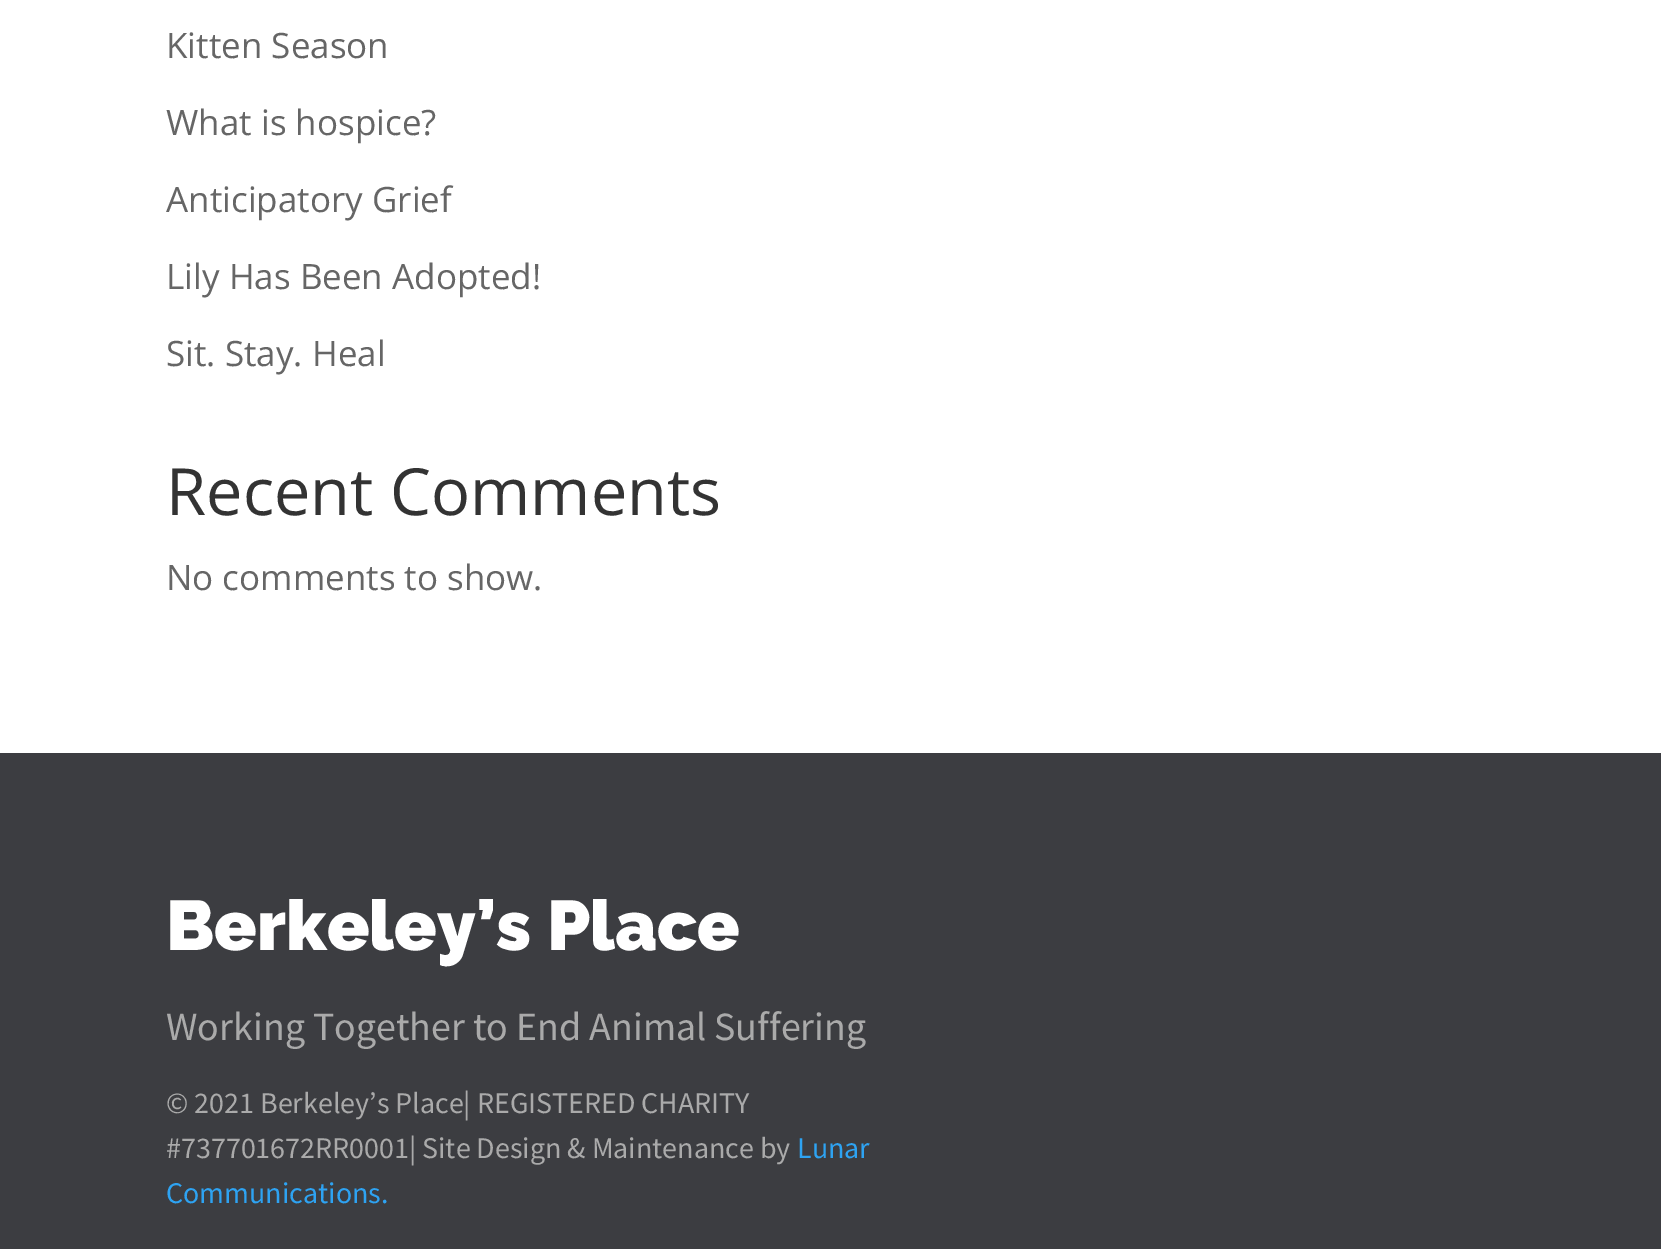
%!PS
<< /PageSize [1661 1249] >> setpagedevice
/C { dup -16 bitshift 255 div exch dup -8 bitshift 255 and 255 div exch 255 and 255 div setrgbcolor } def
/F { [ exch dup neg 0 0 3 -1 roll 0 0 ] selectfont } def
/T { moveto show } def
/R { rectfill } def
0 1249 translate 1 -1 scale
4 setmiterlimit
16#FFFFFF C
0 0 1661 1249 R
/OpenSans-Regular 35 F
16#666666 C
(Kitten Season) 166 58 T
(What is hospice?) 166 135 T
(Anticipatory Grief) 166 212 T
(Lily Has Been Adopted!) 166 289 T
(Sit. Stay. Heal) 166 366 T
/OpenSans-Regular 65 F
16#333333 C
(Recent Comments) 166 515 T
/OpenSans-Regular 35 F
16#666666 C
(No comments to show.) 166 590 T
16#3C3D41 C
0 753 1661 496 R
/Raleway-Thin 70 F
16#FFFFFF C
(Berkeley’s Place) 166 950 T
/SourceSansPro-Regular 40 F
16#AAAAAA C
(Working Together to End Animal Suffering) 166 1040 T
/SourceSansPro-Regular 30 F
(© 2021 Berkeley’s Place| REGISTERED CHARITY) 166 1113 T
(#737701672RR0001| Site Design & Maintenance by) 166 1158 T
16#2EA3F2 C
(Lunar) 797 1158 T
(Communications.) 166 1203 T
showpage
